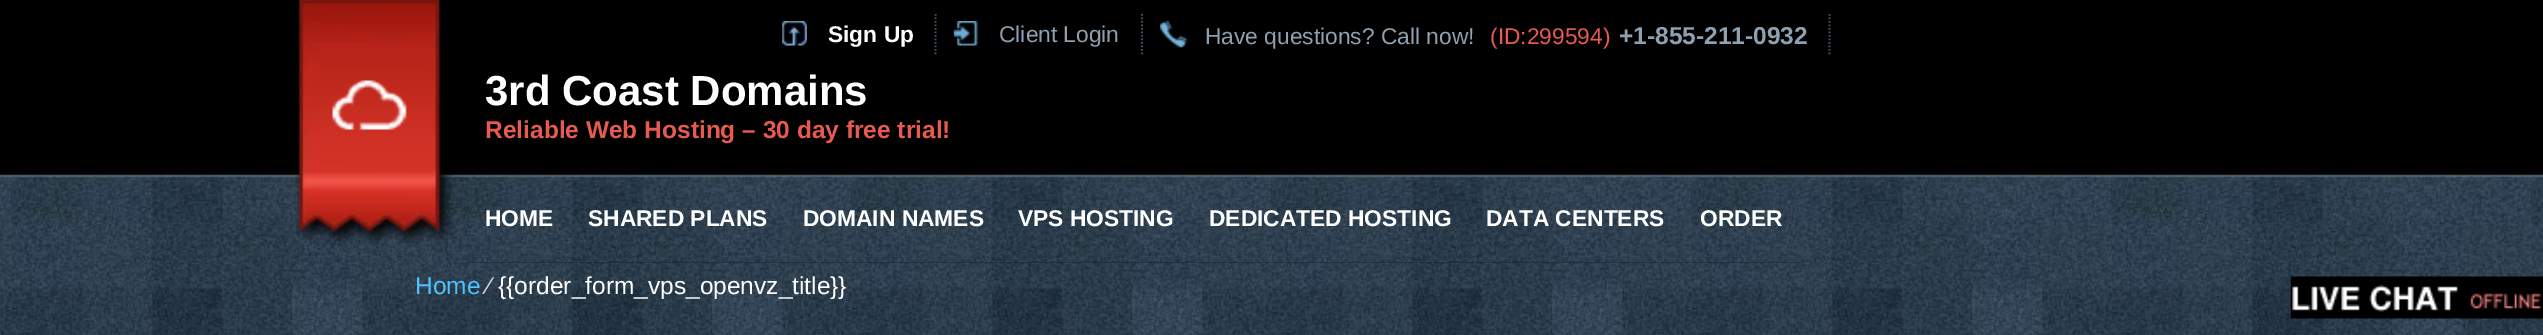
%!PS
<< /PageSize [2543 335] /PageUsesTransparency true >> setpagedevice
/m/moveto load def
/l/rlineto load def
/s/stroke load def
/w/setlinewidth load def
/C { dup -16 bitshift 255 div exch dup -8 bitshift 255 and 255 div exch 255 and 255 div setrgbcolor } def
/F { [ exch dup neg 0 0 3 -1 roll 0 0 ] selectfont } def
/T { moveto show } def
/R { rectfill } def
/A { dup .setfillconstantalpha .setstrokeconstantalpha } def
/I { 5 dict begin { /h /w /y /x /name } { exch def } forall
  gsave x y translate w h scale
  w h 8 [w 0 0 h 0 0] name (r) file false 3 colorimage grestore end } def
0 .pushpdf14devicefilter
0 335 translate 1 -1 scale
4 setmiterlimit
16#FFFFFF C
0 0 2543 335 R
(1.rgb) 0 0 2543 335 I
(2.rgb) 294 0 160 245 I
(3.rgb) 332 80 75 50 I
(4.rgb) 782 21 25 25 I
16#3D5262 C
1.8 w
[1.75 1.75] 0 setdash
935.5 14 m 0 42 l s
/LiberationSans-Bold 22.75 F
16#FFFFFF C
(Sign Up) 828 42 T
(5.rgb) 953 21 26 25 I
16#3D5262 C
1142 14 m 0 42 l s
/LiberationSans-Regular 22.75 F
16#8FA0AE C
(Client Login) 999 42 T
(6.rgb) 1160 21 27 27 I
16#3D5262 C
1829.5 14 m 0 42 l s
16#8FA0AE C
(Have questions? Call now!) 1205 44 T
16#E75A50 C
(\(ID:299594\)) 1490 44 T
/LiberationSans-Bold 24.5 F
16#8FA0AE C
(+1-855-211-0932) 1619 44 T
(7.rgb) 2290 276 253 43 I
/LiberationSans-Bold 42 F
16#FFFFFF C
(3rd Coast Domains) 485 105 T
/LiberationSans-Bold 24.5 F
16#E75A50 C
(Reliable Web Hosting – 30 day free trial!) 485 138 T
(8.rgb) 467 262 104 1 I
/LiberationSans-Bold 22.75 F
16#FFFFFF C
(HOME) 485 226 T
(9.rgb) 570 262 216 1 I
(SHARED PLANS) 588 226 T
0.25 A
16#000000 C
786 262 215 1 R
1 A
16#FFFFFF C
(DOMAIN NAMES) 803 226 T
(10.rgb) 1001 262 191 1 I
(VPS HOSTING) 1018 226 T
(11.rgb) 1191 262 278 1 I
(DEDICATED HOSTING) 1209 226 T
(12.rgb) 1468 262 214 1 I
(DATA CENTERS) 1486 226 T
(13.rgb) 1681 262 118 1 I
(ORDER) 1700 226 T
/LiberationSans-Regular 24.5 F
16#50C1FC C
(Home) 415 294 T
16#D9D9D9 C
(⁄) 487 294 T
16#FFFFFF C
({{order_form_vps_openvz_title}}) 498 294 T
.poppdf14devicefilter showpage
